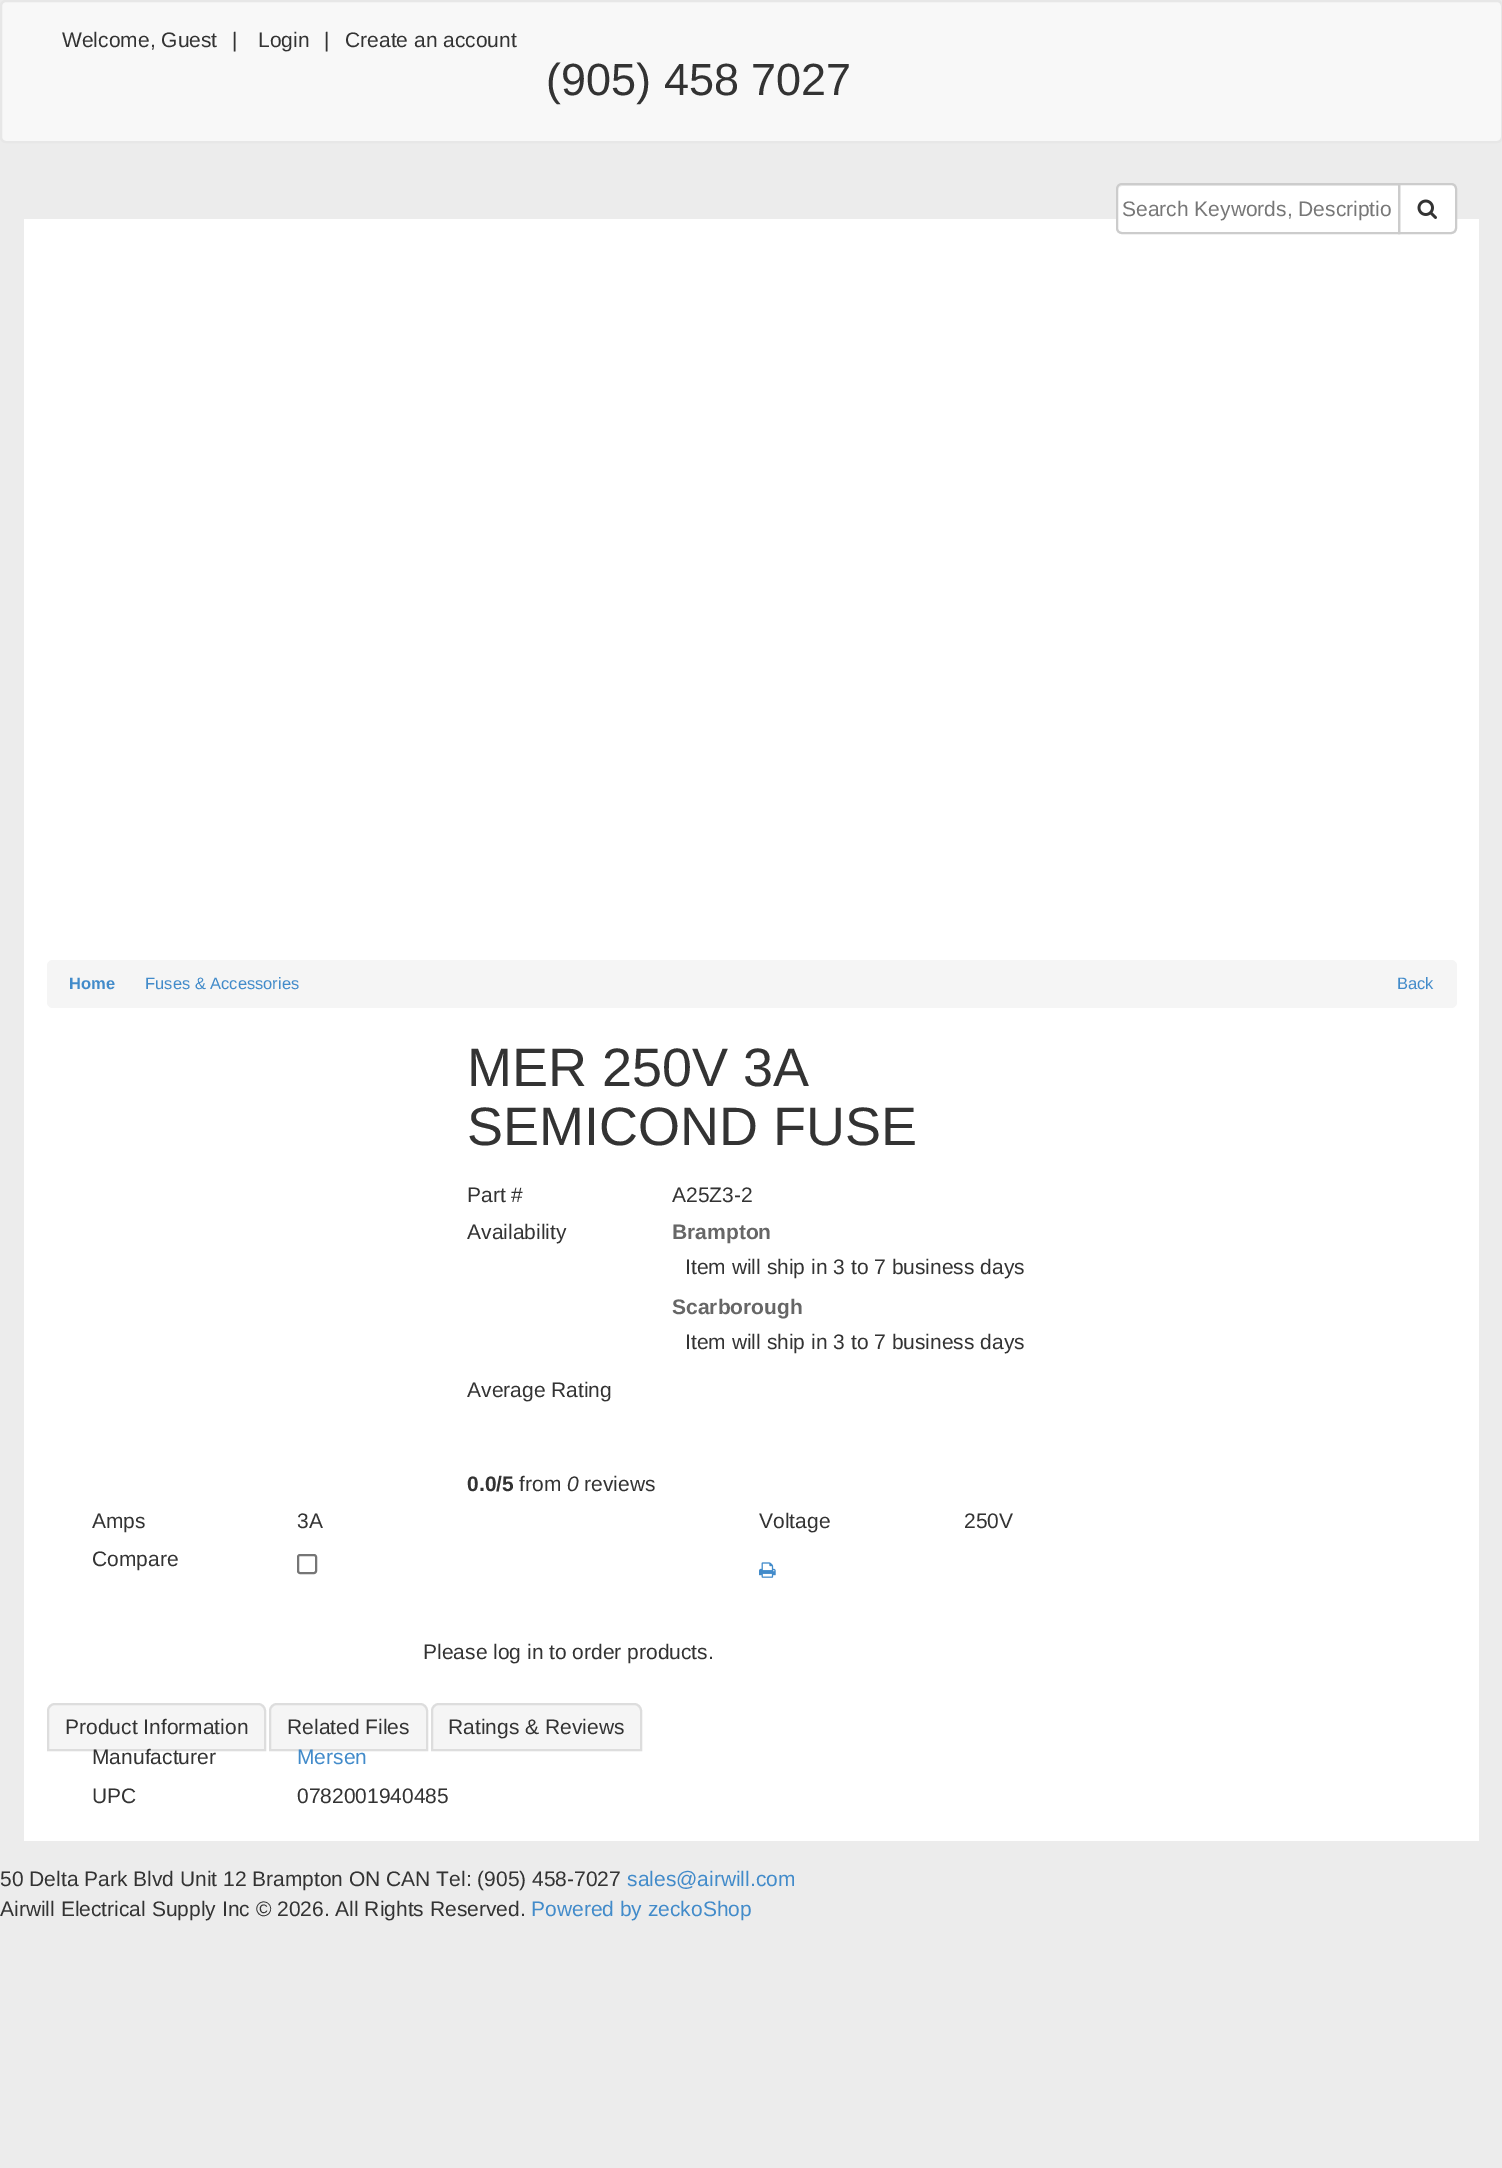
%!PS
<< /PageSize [1502 2168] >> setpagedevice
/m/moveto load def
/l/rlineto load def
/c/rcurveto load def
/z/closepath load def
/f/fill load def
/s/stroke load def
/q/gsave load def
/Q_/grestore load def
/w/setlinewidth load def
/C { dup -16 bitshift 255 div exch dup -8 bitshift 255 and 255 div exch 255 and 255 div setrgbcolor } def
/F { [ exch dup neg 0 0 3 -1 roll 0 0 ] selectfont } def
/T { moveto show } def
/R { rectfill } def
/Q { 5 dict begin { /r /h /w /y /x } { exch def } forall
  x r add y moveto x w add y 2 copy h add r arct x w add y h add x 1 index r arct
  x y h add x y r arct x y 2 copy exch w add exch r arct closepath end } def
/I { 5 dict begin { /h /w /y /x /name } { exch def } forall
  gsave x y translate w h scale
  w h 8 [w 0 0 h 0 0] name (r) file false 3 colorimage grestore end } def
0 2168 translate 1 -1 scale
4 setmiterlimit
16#ECECEC C
0 0 1502 2168 R
16#F8F8F8 C
1 1 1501 141 5 Q q f Q_
16#E7E7E7 C
2 w
s
/LiberationSans-Regular 21 F
16#333333 C
(Welcome, Guest) 62 47 T
(|) 232 47 T
(Login) 258 47 T
(|) 324 47 T
(Create an account) 345 47 T
/LiberationSans-Regular 45 F
(\(905\) 458 7027) 546 95 T
16#FFFFFF C
24 219 1455 1622 R
1399 184 m 52 0 l 3 0 5 2 5 5 c 0 39 l 0 3 -2 5 -5 5 c -52 0 l z q f Q_
16#CCCCCC C
s
16#FFFFFF C
1122 183 m 278 0 l 0 51 l -278 0 l -3.5 0 -6 -2.5 -6 -6 c 0 -39 l 0 -3.5 2.5 -6 6 -6 c z f
16#ECECEC C
1122 186 m 276 0 l 0 -1 l -275 0 l -3 0 -5 2 -5 5 c 0 -2 2 -4 4 -4 c z f
16#CCCCCC C
1122 184 m 277 0 l 0 49 l -277 0 l -3 0 -5 -2 -5 -5 c 0 -39 l 0 -3 2 -5 5 -5 c z s
/LiberationSans-Regular 21 F
16#777777 C
(Search Keywords, Descriptio) 1122 216 T
(1.rgb) 1417 199 20 20 I
16#F5F5F5 C
47 960 1410 48 6 Q f
/LiberationSans-Bold 16.5 F
16#428BCA C
(Home) 69 989 T
/LiberationSans-Regular 16.5 F
(Fuses & Accessories) 145 989 T
(Back) 1397 989 T
/LiberationSans-Regular 54 F
16#333333 C
(MER 250V 3A) 467 1086 T
(SEMICOND FUSE) 467 1145 T
/LiberationSans-Regular 21 F
(Part #) 467 1202 T
(A25Z3-2) 672 1202 T
(Availability) 467 1239 T
/LiberationSans-Bold 21 F
16#666666 C
(Brampton) 672 1239 T
/LiberationSans-Regular 21 F
16#333333 C
(Item will ship in 3 to 7 business days) 685 1274 T
/LiberationSans-Bold 21 F
16#666666 C
(Scarborough) 672 1314 T
/LiberationSans-Regular 21 F
16#333333 C
(Item will ship in 3 to 7 business days) 685 1349 T
(Average Rating) 467 1397 T
/LiberationSans-Bold 21 F
(0.0/5) 467 1491 T
/LiberationSans-Regular 21 F
(from) 519 1491 T
/LiberationSans-Italic 21 F
(0) 567 1491 T
/LiberationSans-Regular 21 F
(reviews) 584 1491 T
(Amps) 92 1528 T
(3A) 297 1528 T
(Voltage) 759 1528 T
(250V) 964 1528 T
(Compare) 92 1566 T
16#767676 C
298 1555 18 18 2 Q s
(2.rgb) 759 1562 17 16 I
16#333333 C
(Please log in to order products.) 423 1659 T
16#F5F5F5 C
55 1704 m 203 0 l 4 0 7 3 7 7 c 0 39 l -217 0 l 0 -39 l 0 -4 3 -7 7 -7 c z q f Q_
16#DDDDDD C
s
16#333333 C
(Product Information) 65 1734 T
16#F5F5F5 C
277 1704 m 143 0 l 4 0 7 3 7 7 c 0 39 l -157 0 l 0 -39 l 0 -4 3 -7 7 -7 c z q f Q_
16#DDDDDD C
s
16#333333 C
(Related Files) 287 1734 T
16#F5F5F5 C
439 1704 m 195 0 l 4 0 7 3 7 7 c 0 39 l -209 0 l 0 -39 l 0 -4 3 -7 7 -7 c z q f Q_
16#DDDDDD C
s
16#333333 C
(Ratings & Reviews) 448 1734 T
(Manufacturer) 92 1764 T
16#428BCA C
(Mersen) 297 1764 T
16#333333 C
(UPC) 92 1803 T
(0782001940485) 297 1803 T
(50 Delta Park Blvd Unit 12 Brampton ON CAN Tel: \(905\) 458-7027) 0 1886 T
16#428BCA C
(sales@airwill.com) 627 1886 T
16#333333 C
(Airwill Electrical Supply Inc © 2026. All Rights Reserved.) 0 1916 T
16#428BCA C
(Powered by zeckoShop) 531 1916 T
showpage
